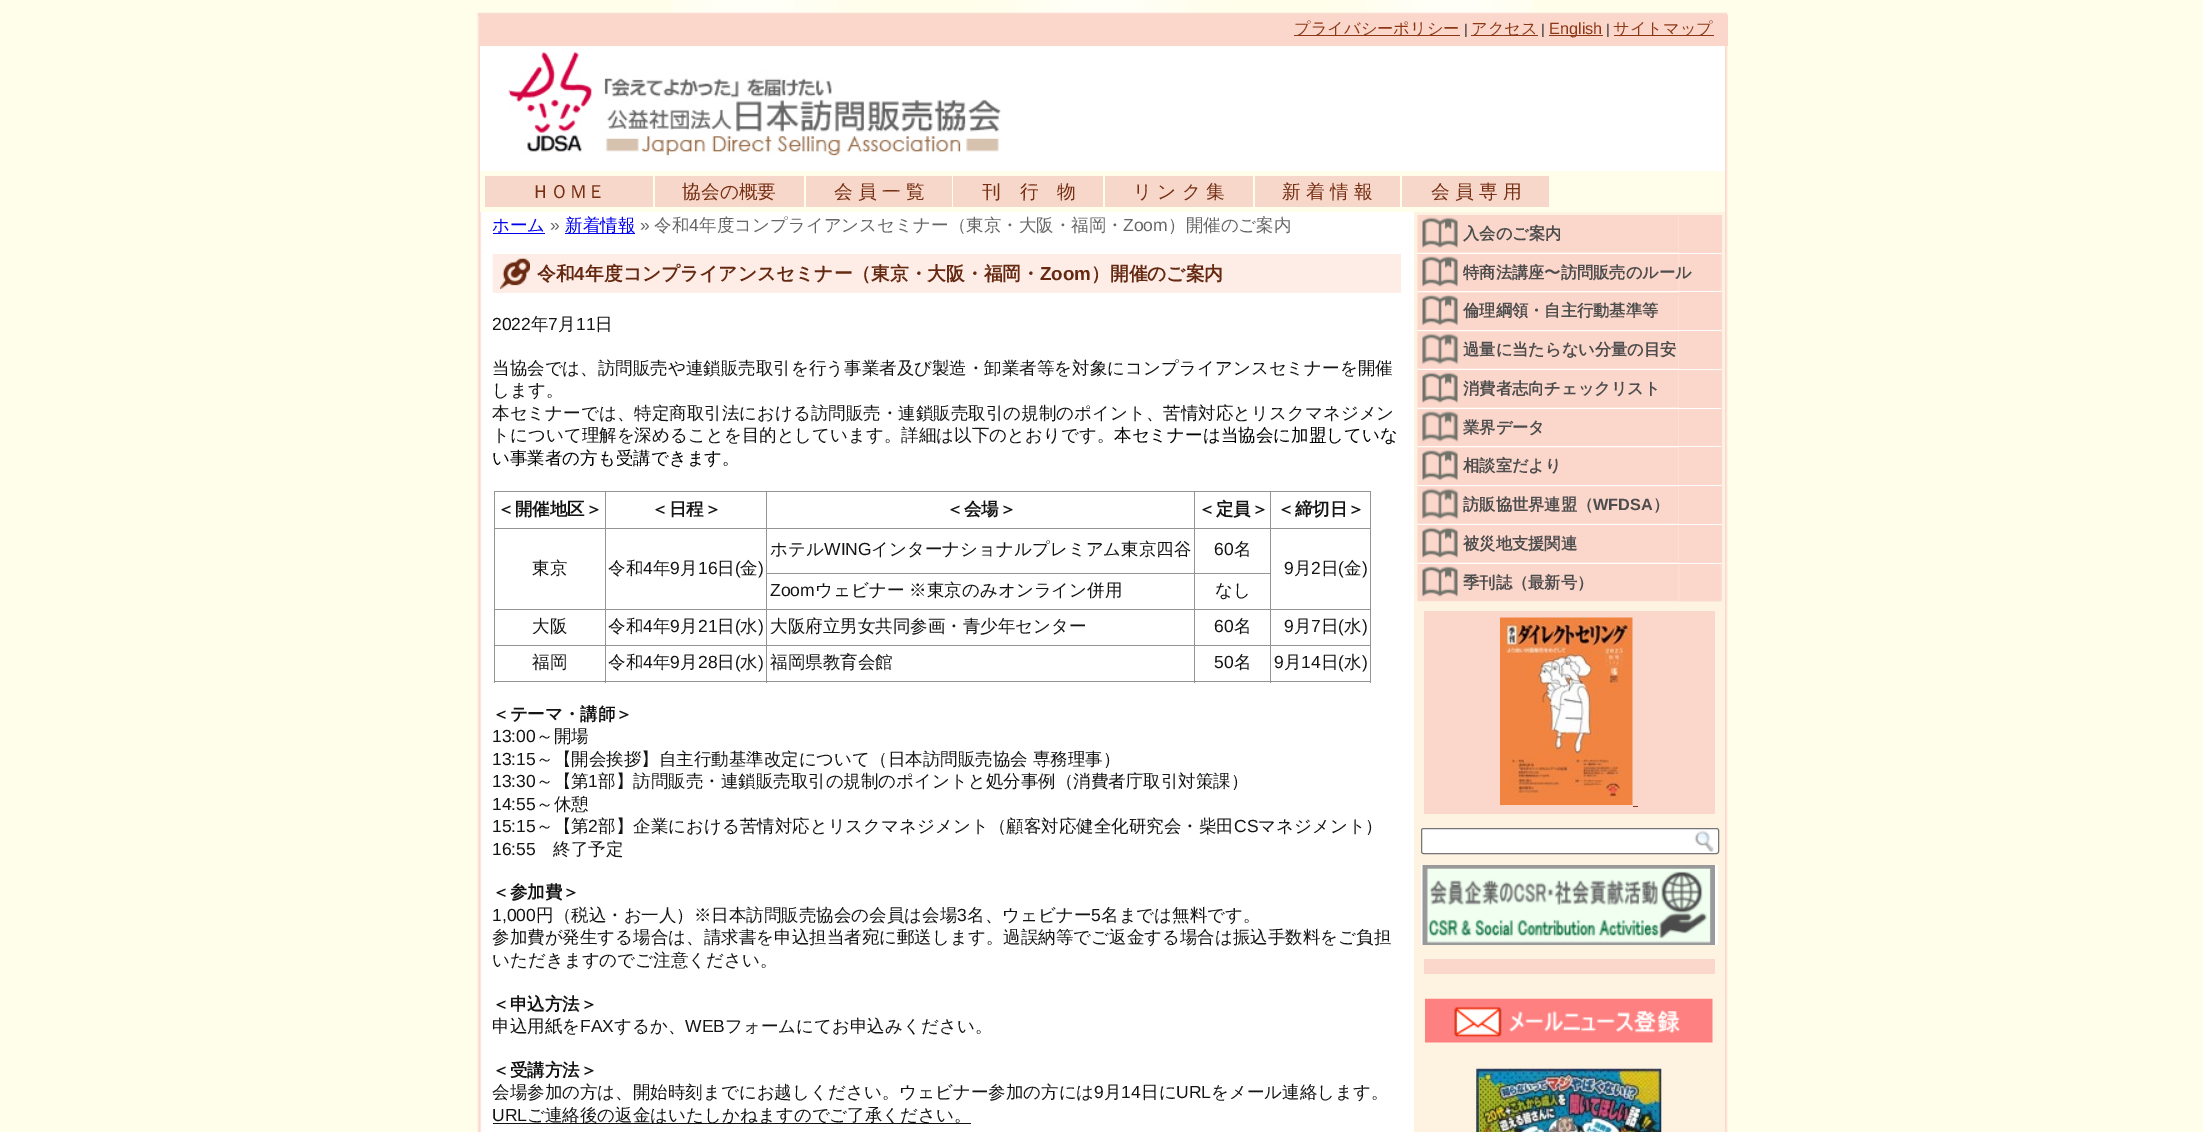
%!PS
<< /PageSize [2203 1132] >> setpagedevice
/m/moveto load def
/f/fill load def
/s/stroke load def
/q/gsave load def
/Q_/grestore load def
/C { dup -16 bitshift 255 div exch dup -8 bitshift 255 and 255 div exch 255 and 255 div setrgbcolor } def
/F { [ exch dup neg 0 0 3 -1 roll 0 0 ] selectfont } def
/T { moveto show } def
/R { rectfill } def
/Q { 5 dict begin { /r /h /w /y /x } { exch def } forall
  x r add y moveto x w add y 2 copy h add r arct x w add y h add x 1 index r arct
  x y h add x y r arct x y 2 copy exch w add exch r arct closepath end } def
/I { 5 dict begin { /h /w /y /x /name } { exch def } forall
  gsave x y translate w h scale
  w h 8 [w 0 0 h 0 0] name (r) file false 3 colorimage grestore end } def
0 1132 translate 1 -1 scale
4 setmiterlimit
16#FFFEEB C
0 0 2203 1132 R
(1.rgb) 671 0 863 14 I
(2.rgb) 477 12 1247 5 I
(3.rgb) 477 12 1247 5 I
(4.rgb) 1724 12 4 3 I
(5.rgb) 1724 12 4 3 I
(6.rgb) 477 16 937 1116 I
16#FBD6CB C
480 15 1248 31 R
16#8C3817 C
1294 35 166 1 R
/WenQuanYiZenHei-Medium 16.25 F
(プライバシーポリシー) 1294 34 T
/LiberationSans-Regular 14 F
16#383838 C
(|) 1464 34 T
16#8C3817 C
1471 35 67 1 R
/WenQuanYiZenHei-Medium 16.25 F
(アクセス) 1471 34 T
/LiberationSans-Regular 14 F
16#383838 C
(|) 1541 34 T
16#8C3817 C
1549 35 54 1 R
/LiberationSans-Regular 16.25 F
(English) 1549 34 T
/LiberationSans-Regular 14 F
16#383838 C
(|) 1606 34 T
16#8C3817 C
1614 35 100 1 R
/WenQuanYiZenHei-Medium 16.25 F
(サイトマップ) 1613 34 T
16#FFFFFF C
480 46 1245 125 R
(7.rgb) 508 52 494 104 I
16#FFFEEB C
480 171 934 41 R
16#F6D7CA C
485 176 168 31 R
/WenQuanYiZenHei-Medium 18.75 F
16#762F13 C
(ＨＯＭＥ) 531 198 T
16#F6D7CA C
655 176 149 31 R
16#762F13 C
(協会の概要) 682 198 T
16#F6D7CA C
806 176 146 31 R
16#762F13 C
834 198 m -.5 0 32 (会 員 一 覧) widthshow
16#F6D7CA C
953 176 150 31 R
16#762F13 C
(刊　行　物) 982 198 T
16#F6D7CA C
1105 176 148 31 R
16#762F13 C
1133 198 m -.5 0 32 (リ ン ク 集) widthshow
16#F6D7CA C
1255 176 145 31 R
16#762F13 C
1282 198 m -.5 0 32 (新 着 情 報) widthshow
16#F6D7CA C
1402 176 147 31 R
16#762F13 C
1431 198 m -.5 0 32 (会 員 専 用) widthshow
(8.rgb) 1725 46 3 1086 I
/WenQuanYiZenHei-Medium 17.5 F
16#0000EE C
(ホーム) 492 231 T
493 233 52 1 R
/LiberationSans-Regular 17.5 F
16#666666 C
(») 550 231 T
16#0000EE C
565 233 70 1 R
/WenQuanYiZenHei-Medium 17.5 F
(新着情報) 565 231 T
/LiberationSans-Regular 17.5 F
16#666666 C
(») 640 231 T
/WenQuanYiZenHei-Medium 17.5 F
(令和) 654 231 T
/LiberationSans-Regular 17.5 F
(4) 689 231 T
/WenQuanYiZenHei-Medium 17.5 F
(年度コンプライアンスセミナー（東京・大阪・福岡・) 699 231 T
/LiberationSans-Regular 17.5 F
(Zoom) 1123 231 T
/WenQuanYiZenHei-Medium 17.5 F
(）開催のご案内) 1168 231 T
16#FFF6F2 C
493 254 908 39 R
(9.rgb) 492 254 909 39 I
(10.rgb) 500 258 30 31 I
/WenQuanYiZenHei-Bold 18.75 F
16#652810 C
(令和) 537 280 T
/LiberationSans-Bold 18.75 F
(4) 574 280 T
/WenQuanYiZenHei-Bold 18.75 F
(年度コンプライアンスセミナー（東京・大阪・福岡・) 585 280 T
/LiberationSans-Bold 18.75 F
(Zoom) 1040 280 T
/WenQuanYiZenHei-Bold 18.75 F
(）開催のご案内) 1091 280 T
/LiberationSans-Regular 17.5 F
16#141414 C
(2022) 492 330 T
/WenQuanYiZenHei-Medium 17.5 F
(年) 531 330 T
/LiberationSans-Regular 17.5 F
(7) 548 330 T
/WenQuanYiZenHei-Medium 17.5 F
(月) 558 330 T
/LiberationSans-Regular 17.5 F
(11) 576 330 T
/WenQuanYiZenHei-Medium 17.5 F
(日) 595 330 T
(当協会では、訪問販売や連鎖販売取引を行う事業者及び製造・卸業者等を対象にコンプライアンスセミナーを開催) 492 374 T
(します。) 492 396 T
(本セミナーでは、特定商取引法における訪問販売・連鎖販売取引の規制のポイント、苦情対応とリスクマネジメン) 492 419 T
(トについて理解を深めることを目的としています。詳細は以下のとおりです。) 492 441 T
16#000000 C
(本セミナーは当協会に加盟していな) 1114 441 T
(い事業者の方も受講できます。) 492 464 T
16#949494 C
1270 491 101 1 R
1270 528 101 1 R
1194 573 77 1 R
1270 609 101 1 R
1270 645 101 1 R
1370 645 1 38 R
1270 681 101 1 R
1270 645 1 38 R
1194 645 77 1 R
1270 609 1 37 R
1194 609 77 1 R
1270 528 1 82 R
1194 528 77 1 R
1270 491 1 38 R
1194 491 77 1 R
1194 681 77 1 R
1194 645 1 38 R
766 645 429 1 R
1194 609 1 37 R
766 609 429 1 R
1194 573 1 37 R
766 573 429 1 R
1194 528 1 46 R
766 528 429 1 R
1194 491 1 38 R
766 491 429 1 R
766 681 429 1 R
766 645 1 38 R
605 645 163 1 R
766 609 1 37 R
605 609 163 1 R
766 573 1 37 R
766 528 1 46 R
605 528 163 1 R
766 491 1 38 R
605 491 163 1 R
605 681 163 1 R
605 645 1 38 R
494 645 112 1 R
605 609 1 37 R
494 609 112 1 R
605 528 1 82 R
494 528 112 1 R
605 491 1 38 R
494 491 112 1 R
494 681 112 1 R
494 645 1 38 R
494 609 1 37 R
494 528 1 82 R
494 491 1 38 R
/WenQuanYiZenHei-Bold 17.5 F
16#141414 C
(＜開催地区＞) 497 515 T
(＜日程＞) 651 515 T
(＜会場＞) 946 515 T
(＜定員＞) 1198 515 T
16#949494 C
1370 609 1 37 R
1370 528 1 82 R
1370 491 1 38 R
16#141414 C
(＜締切日＞) 1277 515 T
/WenQuanYiZenHei-Medium 17.5 F
(ホテル) 770 555 T
/LiberationSans-Regular 17.5 F
(WING) 824 555 T
/WenQuanYiZenHei-Medium 17.5 F
(インターナショナルプレミアム東京四谷) 871 555 T
/LiberationSans-Regular 17.5 F
(60) 1214 555 T
/WenQuanYiZenHei-Medium 17.5 F
(名) 1234 555 T
(東京) 532 574 T
(令和) 608 574 T
/LiberationSans-Regular 17.5 F
(4) 643 574 T
/WenQuanYiZenHei-Medium 17.5 F
(年) 653 574 T
/LiberationSans-Regular 17.5 F
(9) 670 574 T
/WenQuanYiZenHei-Medium 17.5 F
(月) 680 574 T
/LiberationSans-Regular 17.5 F
(16) 698 574 T
/WenQuanYiZenHei-Medium 17.5 F
(日) 717 574 T
/LiberationSans-Regular 17.5 F
(\() 735 574 T
/WenQuanYiZenHei-Medium 17.5 F
(金) 740 574 T
/LiberationSans-Regular 17.5 F
(\)) 758 574 T
(9) 1284 574 T
/WenQuanYiZenHei-Medium 17.5 F
(月) 1294 574 T
/LiberationSans-Regular 17.5 F
(2) 1311 574 T
/WenQuanYiZenHei-Medium 17.5 F
(日) 1321 574 T
/LiberationSans-Regular 17.5 F
(\() 1338 574 T
/WenQuanYiZenHei-Medium 17.5 F
(金) 1344 574 T
/LiberationSans-Regular 17.5 F
(\)) 1362 574 T
(Zoom) 770 596 T
/WenQuanYiZenHei-Medium 17.5 F
(ウェビナー ※東京のみオンライン併用) 815 596 T
(なし) 1215 596 T
(大阪) 532 632 T
(令和) 608 632 T
/LiberationSans-Regular 17.5 F
(4) 643 632 T
/WenQuanYiZenHei-Medium 17.5 F
(年) 653 632 T
/LiberationSans-Regular 17.5 F
(9) 670 632 T
/WenQuanYiZenHei-Medium 17.5 F
(月) 680 632 T
/LiberationSans-Regular 17.5 F
(21) 698 632 T
/WenQuanYiZenHei-Medium 17.5 F
(日) 717 632 T
/LiberationSans-Regular 17.5 F
(\() 735 632 T
/WenQuanYiZenHei-Medium 17.5 F
(水) 740 632 T
/LiberationSans-Regular 17.5 F
(\)) 758 632 T
/WenQuanYiZenHei-Medium 17.5 F
(大阪府立男女共同参画・青少年センター) 770 632 T
/LiberationSans-Regular 17.5 F
(60) 1214 632 T
/WenQuanYiZenHei-Medium 17.5 F
(名) 1234 632 T
/LiberationSans-Regular 17.5 F
(9) 1284 632 T
/WenQuanYiZenHei-Medium 17.5 F
(月) 1294 632 T
/LiberationSans-Regular 17.5 F
(7) 1311 632 T
/WenQuanYiZenHei-Medium 17.5 F
(日) 1321 632 T
/LiberationSans-Regular 17.5 F
(\() 1338 632 T
/WenQuanYiZenHei-Medium 17.5 F
(水) 1344 632 T
/LiberationSans-Regular 17.5 F
(\)) 1362 632 T
/WenQuanYiZenHei-Medium 17.5 F
(福岡) 532 668 T
(令和) 608 668 T
/LiberationSans-Regular 17.5 F
(4) 643 668 T
/WenQuanYiZenHei-Medium 17.5 F
(年) 653 668 T
/LiberationSans-Regular 17.5 F
(9) 670 668 T
/WenQuanYiZenHei-Medium 17.5 F
(月) 680 668 T
/LiberationSans-Regular 17.5 F
(28) 698 668 T
/WenQuanYiZenHei-Medium 17.5 F
(日) 717 668 T
/LiberationSans-Regular 17.5 F
(\() 735 668 T
/WenQuanYiZenHei-Medium 17.5 F
(水) 740 668 T
/LiberationSans-Regular 17.5 F
(\)) 758 668 T
/WenQuanYiZenHei-Medium 17.5 F
(福岡県教育会館) 770 668 T
/LiberationSans-Regular 17.5 F
(50) 1214 668 T
/WenQuanYiZenHei-Medium 17.5 F
(名) 1234 668 T
/LiberationSans-Regular 17.5 F
(9) 1274 668 T
/WenQuanYiZenHei-Medium 17.5 F
(月) 1284 668 T
/LiberationSans-Regular 17.5 F
(14) 1301 668 T
/WenQuanYiZenHei-Medium 17.5 F
(日) 1321 668 T
/LiberationSans-Regular 17.5 F
(\() 1338 668 T
/WenQuanYiZenHei-Medium 17.5 F
(水) 1344 668 T
/LiberationSans-Regular 17.5 F
(\)) 1362 668 T
/WenQuanYiZenHei-Bold 17.5 F
(＜テーマ・講師＞) 492 720 T
/LiberationSans-Regular 17.5 F
(13:00) 492 742 T
/WenQuanYiZenHei-Medium 17.5 F
(～開場) 536 742 T
/LiberationSans-Regular 17.5 F
(13:15) 492 765 T
/WenQuanYiZenHei-Medium 17.5 F
(～【開会挨拶】自主行動基準改定について（日本訪問販売協会 専務理事）) 536 765 T
/LiberationSans-Regular 17.5 F
(13:30) 492 787 T
/WenQuanYiZenHei-Medium 17.5 F
(～【第) 536 787 T
/LiberationSans-Regular 17.5 F
(1) 588 787 T
/WenQuanYiZenHei-Medium 17.5 F
(部】訪問販売・連鎖販売取引の規制のポイントと処分事例（消費者庁取引対策課）) 598 787 T
/LiberationSans-Regular 17.5 F
(14:55) 492 810 T
/WenQuanYiZenHei-Medium 17.5 F
(～休憩) 536 810 T
/LiberationSans-Regular 17.5 F
(15:15) 492 832 T
/WenQuanYiZenHei-Medium 17.5 F
(～【第) 536 832 T
/LiberationSans-Regular 17.5 F
(2) 588 832 T
/WenQuanYiZenHei-Medium 17.5 F
(部】企業における苦情対応とリスクマネジメント（顧客対応健全化研究会・柴田) 598 832 T
/LiberationSans-Regular 17.5 F
(CS) 1234 832 T
/WenQuanYiZenHei-Medium 17.5 F
(マネジメント）) 1258 832 T
/LiberationSans-Regular 17.5 F
(16:55) 492 855 T
/WenQuanYiZenHei-Medium 17.5 F
(終了予定) 553 855 T
/WenQuanYiZenHei-Bold 17.5 F
(＜参加費＞) 492 898 T
/LiberationSans-Regular 17.5 F
(1,000) 492 921 T
/WenQuanYiZenHei-Medium 17.5 F
(円（税込・お一人）※日本訪問販売協会の会員は会場) 536 921 T
/LiberationSans-Regular 17.5 F
(3) 957 921 T
/WenQuanYiZenHei-Medium 17.5 F
(名、ウェビナー) 967 921 T
/LiberationSans-Regular 17.5 F
(5) 1091 921 T
/WenQuanYiZenHei-Medium 17.5 F
(名までは無料です。) 1101 921 T
(参加費が発生する場合は、請求書を申込担当者宛に郵送します。過誤納等でご返金する場合は振込手数料をご負担) 492 943 T
(いただきますのでご注意ください。) 492 966 T
/WenQuanYiZenHei-Bold 17.5 F
(＜申込方法＞) 492 1010 T
/WenQuanYiZenHei-Medium 17.5 F
(申込用紙を) 492 1032 T
/LiberationSans-Regular 17.5 F
(FAX) 580 1032 T
/WenQuanYiZenHei-Medium 17.5 F
(するか、) 614 1032 T
/LiberationSans-Regular 17.5 F
(WEB) 685 1032 T
/WenQuanYiZenHei-Medium 17.5 F
(フォームにてお申込みください。) 725 1032 T
/WenQuanYiZenHei-Bold 17.5 F
(＜受講方法＞) 492 1076 T
/WenQuanYiZenHei-Medium 17.5 F
(会場参加の方は、開始時刻までにお越しください。ウェビナー参加の方には) 492 1098 T
/LiberationSans-Regular 17.5 F
(9) 1094 1098 T
/WenQuanYiZenHei-Medium 17.5 F
(月) 1104 1098 T
/LiberationSans-Regular 17.5 F
(14) 1121 1098 T
/WenQuanYiZenHei-Medium 17.5 F
(日に) 1141 1098 T
/LiberationSans-Regular 17.5 F
(URL) 1176 1098 T
/WenQuanYiZenHei-Medium 17.5 F
(をメール連絡します。) 1211 1098 T
/LiberationSans-Regular 17.5 F
(URL) 492 1121 T
493 1123 478 1 R
/WenQuanYiZenHei-Medium 17.5 F
(ご連絡後の返金はいたしかねますのでご了承ください。) 527 1121 T
16#FEF2E1 C
1414 212 311 920 R
(11.rgb) 1417 215 262 38 I
16#FBD6CB C
1679 215 43 38 R
/WenQuanYiZenHei-Bold 16.25 F
16#4D4D4D C
(入会のご案内) 1463 239 T
(12.rgb) 1417 253 262 39 I
16#FFFFFF C
1418 253 303 1 R
(13.rgb) 1679 254 43 38 I
16#4D4D4D C
(特商法講座〜訪問販売のルール) 1463 278 T
16#FFFFFF C
1418 291 303 1 R
(14.rgb) 1417 292 262 38 I
16#FBD6CB C
1679 292 43 38 R
16#4D4D4D C
(倫理綱領・自主行動基準等) 1463 316 T
16#FFFFFF C
1418 330 303 1 R
(15.rgb) 1417 331 262 39 I
16#FBD6CB C
1679 331 43 38 R
16#4D4D4D C
(過量に当たらない分量の目安) 1463 355 T
16#FFFFFF C
1418 369 303 1 R
(11.rgb) 1417 370 262 38 I
16#FBD6CB C
1679 370 43 115 R
16#4D4D4D C
(消費者志向チェックリスト) 1463 394 T
(16.rgb) 1417 408 262 39 I
16#FFFFFF C
1418 408 303 1 R
16#4D4D4D C
(業界データ) 1463 433 T
16#FFFFFF C
1418 446 303 1 R
(17.rgb) 1417 447 262 38 I
16#4D4D4D C
(相談室だより) 1463 471 T
16#FFFFFF C
1418 485 303 1 R
(18.rgb) 1417 486 262 38 I
16#FBD6CB C
1679 486 43 38 R
16#4D4D4D C
(訪販協世界連盟（) 1463 510 T
/LiberationSans-Bold 16.25 F
(WFDSA) 1593 510 T
/WenQuanYiZenHei-Bold 16.25 F
(）) 1653 510 T
16#FFFFFF C
1418 524 303 1 R
(11.rgb) 1417 525 262 38 I
16#FBD6CB C
1679 525 43 38 R
16#4D4D4D C
(被災地支援関連) 1463 549 T
(19.rgb) 1417 563 262 39 I
(20.rgb) 1679 563 43 39 I
16#FFFFFF C
1418 563 303 1 R
16#4D4D4D C
(季刊誌（最新号）) 1463 588 T
16#FBD6CB C
1424 611 291 203 R
(21.rgb) 1500 617 133 188 I
16#8C3817 C
1633 806 5 1 R
16#FFFFFF C
1421.5 828.5 297 25 2 Q q f Q_
16#767676 C
s
(22.rgb) 1694 830 20 22 I
16#FFFFFF C
1421 865 297 80 R
(23.rgb) 1422 865 293 80 I
16#FBD6CB C
1424 959 291 15 R
(24.rgb) 1425 998 288 45 I
(25.rgb) 1476 1068 186 64 I
showpage
